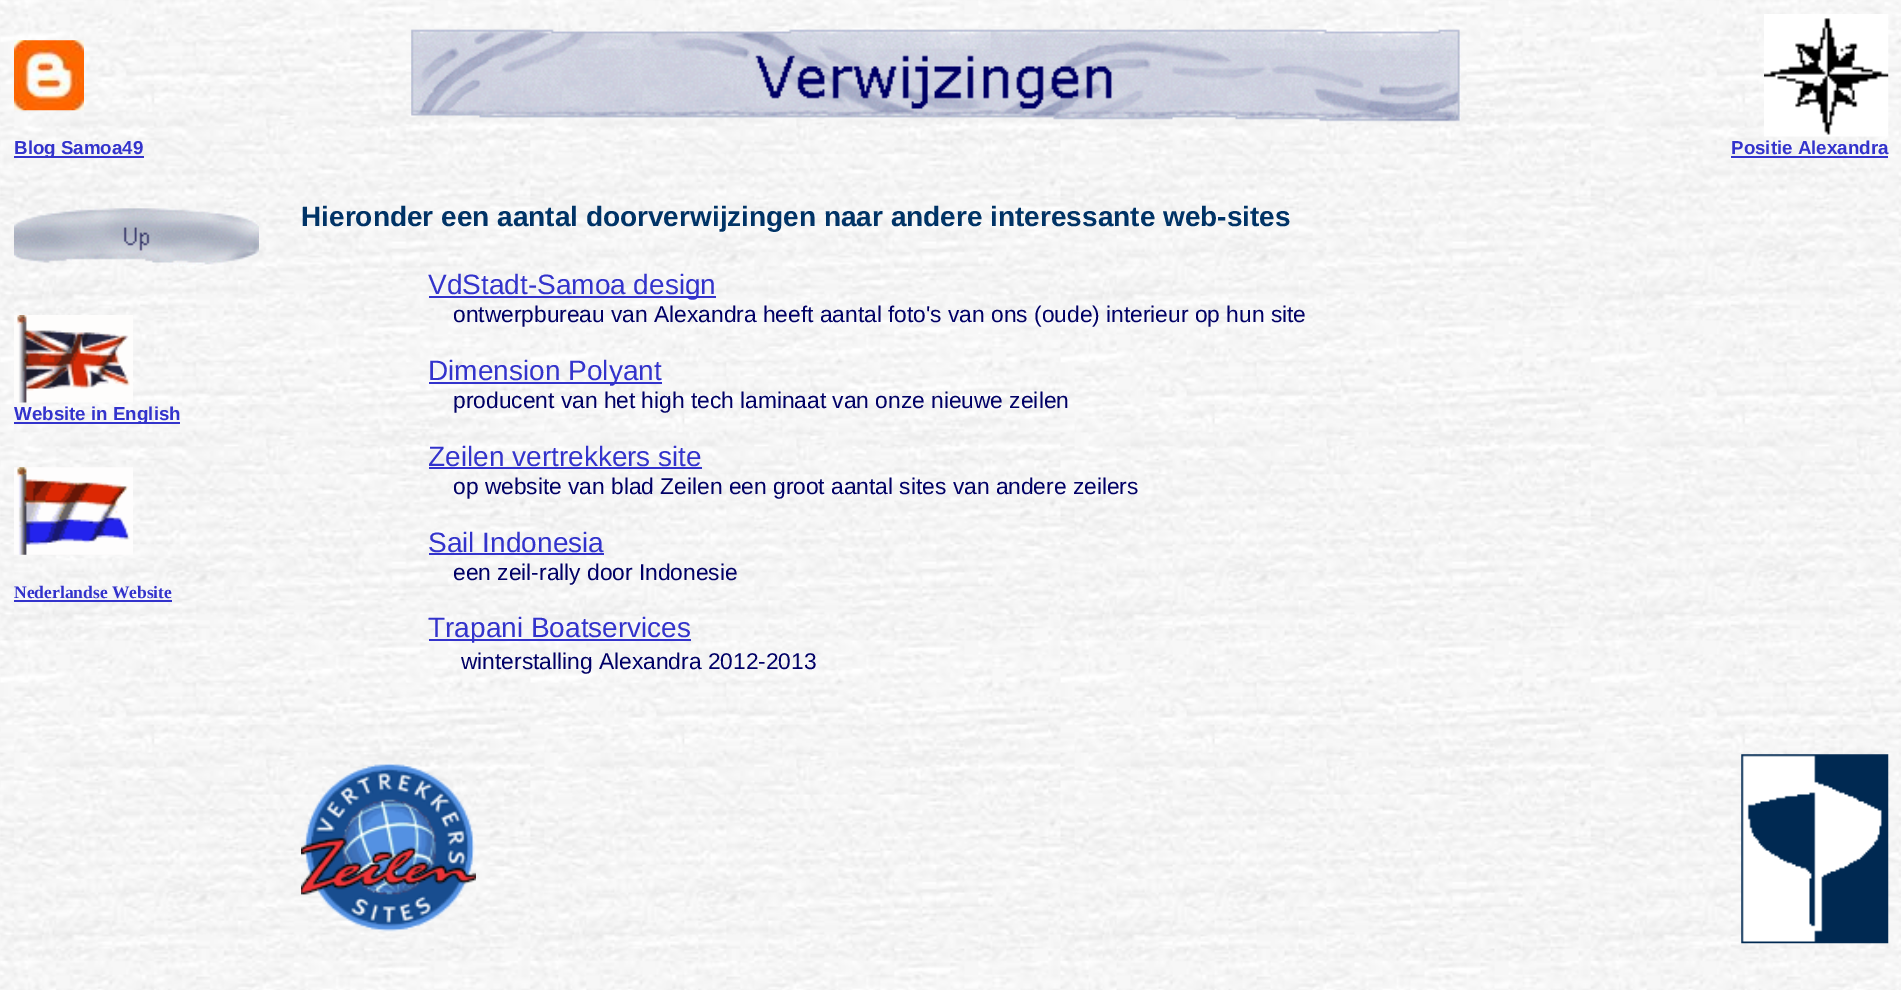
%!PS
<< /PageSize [1901 990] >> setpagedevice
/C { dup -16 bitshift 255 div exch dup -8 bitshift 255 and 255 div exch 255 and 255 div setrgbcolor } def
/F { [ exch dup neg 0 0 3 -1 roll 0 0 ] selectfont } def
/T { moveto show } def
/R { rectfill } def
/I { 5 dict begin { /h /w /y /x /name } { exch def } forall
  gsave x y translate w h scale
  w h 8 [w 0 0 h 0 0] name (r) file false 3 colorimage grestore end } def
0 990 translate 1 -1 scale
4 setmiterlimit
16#FFFFFF C
0 0 1901 990 R
(1.rgb) 0 0 1901 990 I
(2.rgb) 14 40 70 71 I
(3.rgb) 411 29 1050 93 I
(4.rgb) 1764 14 125 123 I
16#3333CC C
14 156 130 2 R
/LiberationSans-Bold 18.75 F
(Blog Samoa49) 14 154 T
(Positie Alexandra) 1731 154 T
1731 156 157 2 R
(5.rgb) 14 208 245 60 I
(6.rgb) 14 315 119 88 I
14 422 166 2 R
(Website in English) 14 420 T
(7.rgb) 14 467 119 88 I
/LiberationSerif-Bold 17.5 F
(Nederlandse Website) 14 598 T
14 600 158 2 R
/LiberationSans-Bold 28 F
16#003366 C
(Hieronder een aantal doorverwijzingen naar andere interessante web-sites) 301 226 T
16#3333CC C
429 296 287 2 R
/LiberationSans-Regular 28 F
(VdStadt-Samoa design) 428 294 T
/LiberationSans-Regular 22.75 F
16#000066 C
(ontwerpbureau van Alexandra heeft aantal foto's van ons \(oude\) interieur op hun site) 453 322 T
16#3333CC C
429 382 233 2 R
/LiberationSans-Regular 28 F
(Dimension Polyant) 428 380 T
/LiberationSans-Regular 22.75 F
16#000066 C
(producent van het high tech laminaat van onze nieuwe zeilen) 453 408 T
/LiberationSans-Regular 28 F
16#3333CC C
(Zeilen vertrekkers site) 428 466 T
429 467 273 2 R
/LiberationSans-Regular 22.75 F
16#000066 C
(op website van blad Zeilen een groot aantal sites van andere zeilers) 453 494 T
/LiberationSans-Regular 28 F
16#3333CC C
(Sail Indonesia) 428 552 T
429 553 175 2 R
/LiberationSans-Regular 22.75 F
16#000066 C
(een zeil-rally door Indonesie) 453 580 T
16#3333CC C
429 639 262 2 R
/LiberationSans-Regular 28 F
(Trapani Boatservices) 428 637 T
/LiberationSans-Regular 22.75 F
16#000066 C
(winterstalling Alexandra 2012-2013) 461 669 T
(8.rgb) 301 763 175 169 I
(9.rgb) 1741 754 148 190 I
showpage
